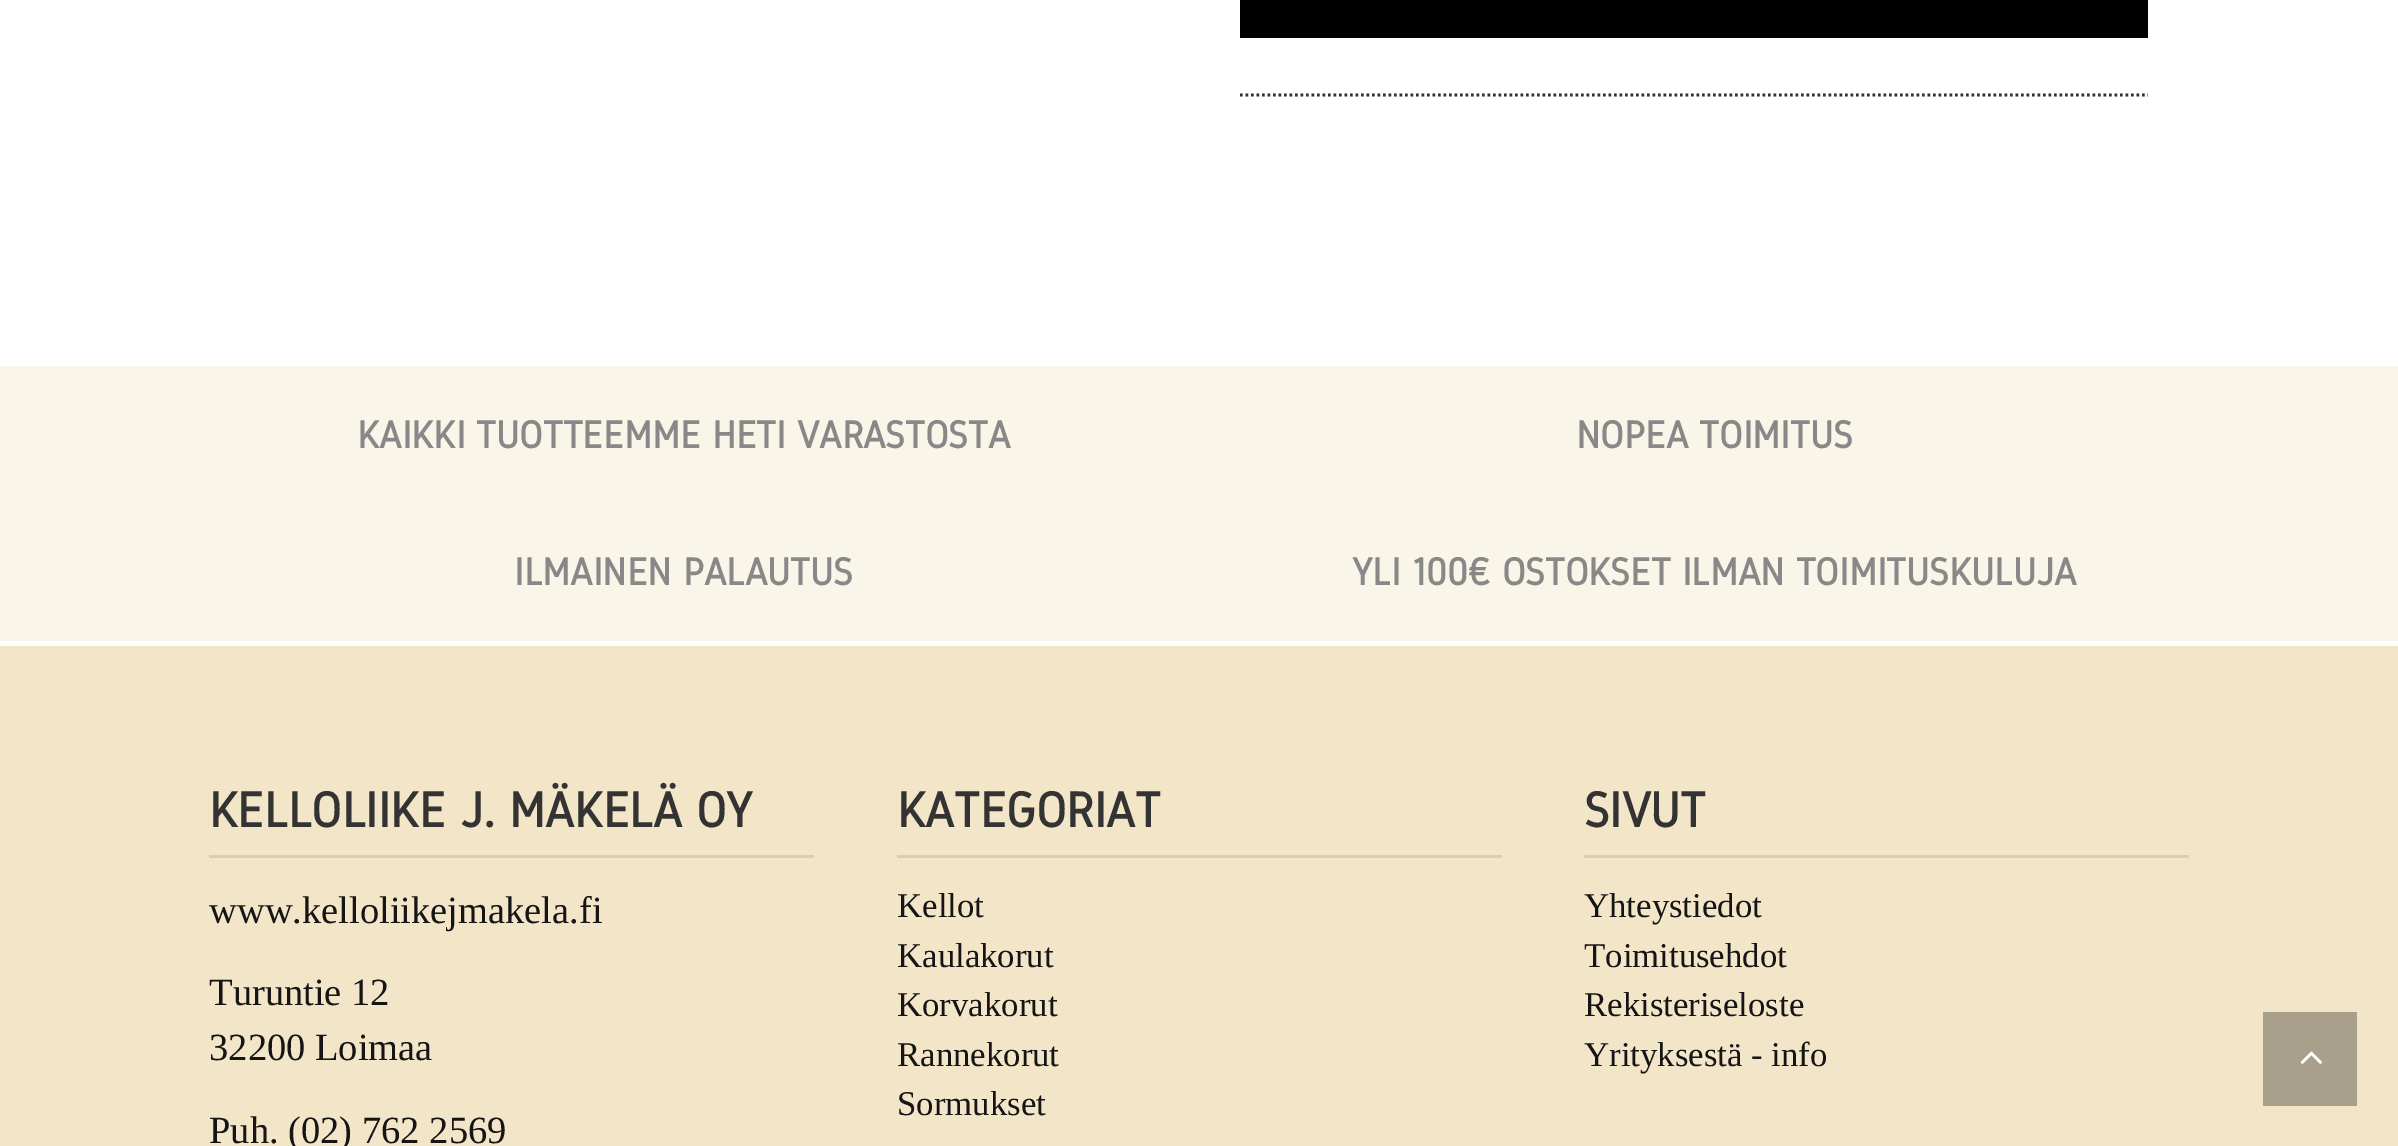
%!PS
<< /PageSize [2398 1146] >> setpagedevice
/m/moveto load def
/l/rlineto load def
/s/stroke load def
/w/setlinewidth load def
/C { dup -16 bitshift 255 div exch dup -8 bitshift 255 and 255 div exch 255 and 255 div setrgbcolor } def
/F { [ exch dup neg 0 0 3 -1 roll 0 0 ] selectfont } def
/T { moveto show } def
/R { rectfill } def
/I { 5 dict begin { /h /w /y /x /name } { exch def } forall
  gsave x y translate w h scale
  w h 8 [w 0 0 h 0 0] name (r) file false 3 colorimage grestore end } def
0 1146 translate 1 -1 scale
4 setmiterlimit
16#FFFFFF C
0 0 2398 1146 R
16#000000 C
1240 0 908 38 R
16#333333 C
2.8 w
[2.75 2.75] 0 setdash
1240 95 m 908 0 l s
16#F2E5C8 C
0 646 2398 500 R
16#A9A08C C
2263 1012 94 94 R
(1.rgb) 2300 1051 22 13 I
16#FAF5E9 C
0 366 2398 275 R
/Gidole-Bold 38.5 F
16#888888 C
(KAIKKI TUOTTEEMME HETI VARASTOSTA) 357 448 T
(NOPEA TOIMITUS) 1576 448 T
(ILMAINEN PALAUTUS) 514 585 T
(YLI 100€ OSTOKSET ILMAN TOIMITUSKULUJA) 1352 585 T
16#DACEB4 C
209 855 605 3 R
/Gidole-Bold 49.5 F
16#333333 C
(KELLOLIIKE J. MÄKELÄ OY) 209 827 T
/LiberationSerif-Regular 38.5 F
16#151515 C
(www.kelloliikejmakela.fi) 209 923 T
(Turuntie 12) 209 1005 T
(32200 Loimaa) 209 1060 T
(Puh. \(02\) 762 2569) 209 1143 T
16#DACEB4 C
897 855 605 3 R
/Gidole-Bold 49.5 F
16#333333 C
(KATEGORIAT) 897 827 T
/LiberationSerif-Regular 34.75 F
16#151515 C
(Kellot) 897 917 T
(Kaulakorut) 897 967 T
(Korvakorut) 897 1016 T
(Rannekorut) 897 1066 T
(Sormukset) 897 1115 T
16#DACEB4 C
1584 855 605 3 R
/Gidole-Bold 49.5 F
16#333333 C
(SIVUT) 1584 827 T
/LiberationSerif-Regular 34.75 F
16#151515 C
(Yhteystiedot) 1584 917 T
(Toimitusehdot) 1584 967 T
(Rekisteriseloste) 1584 1016 T
(Yrityksestä - info) 1584 1066 T
showpage
